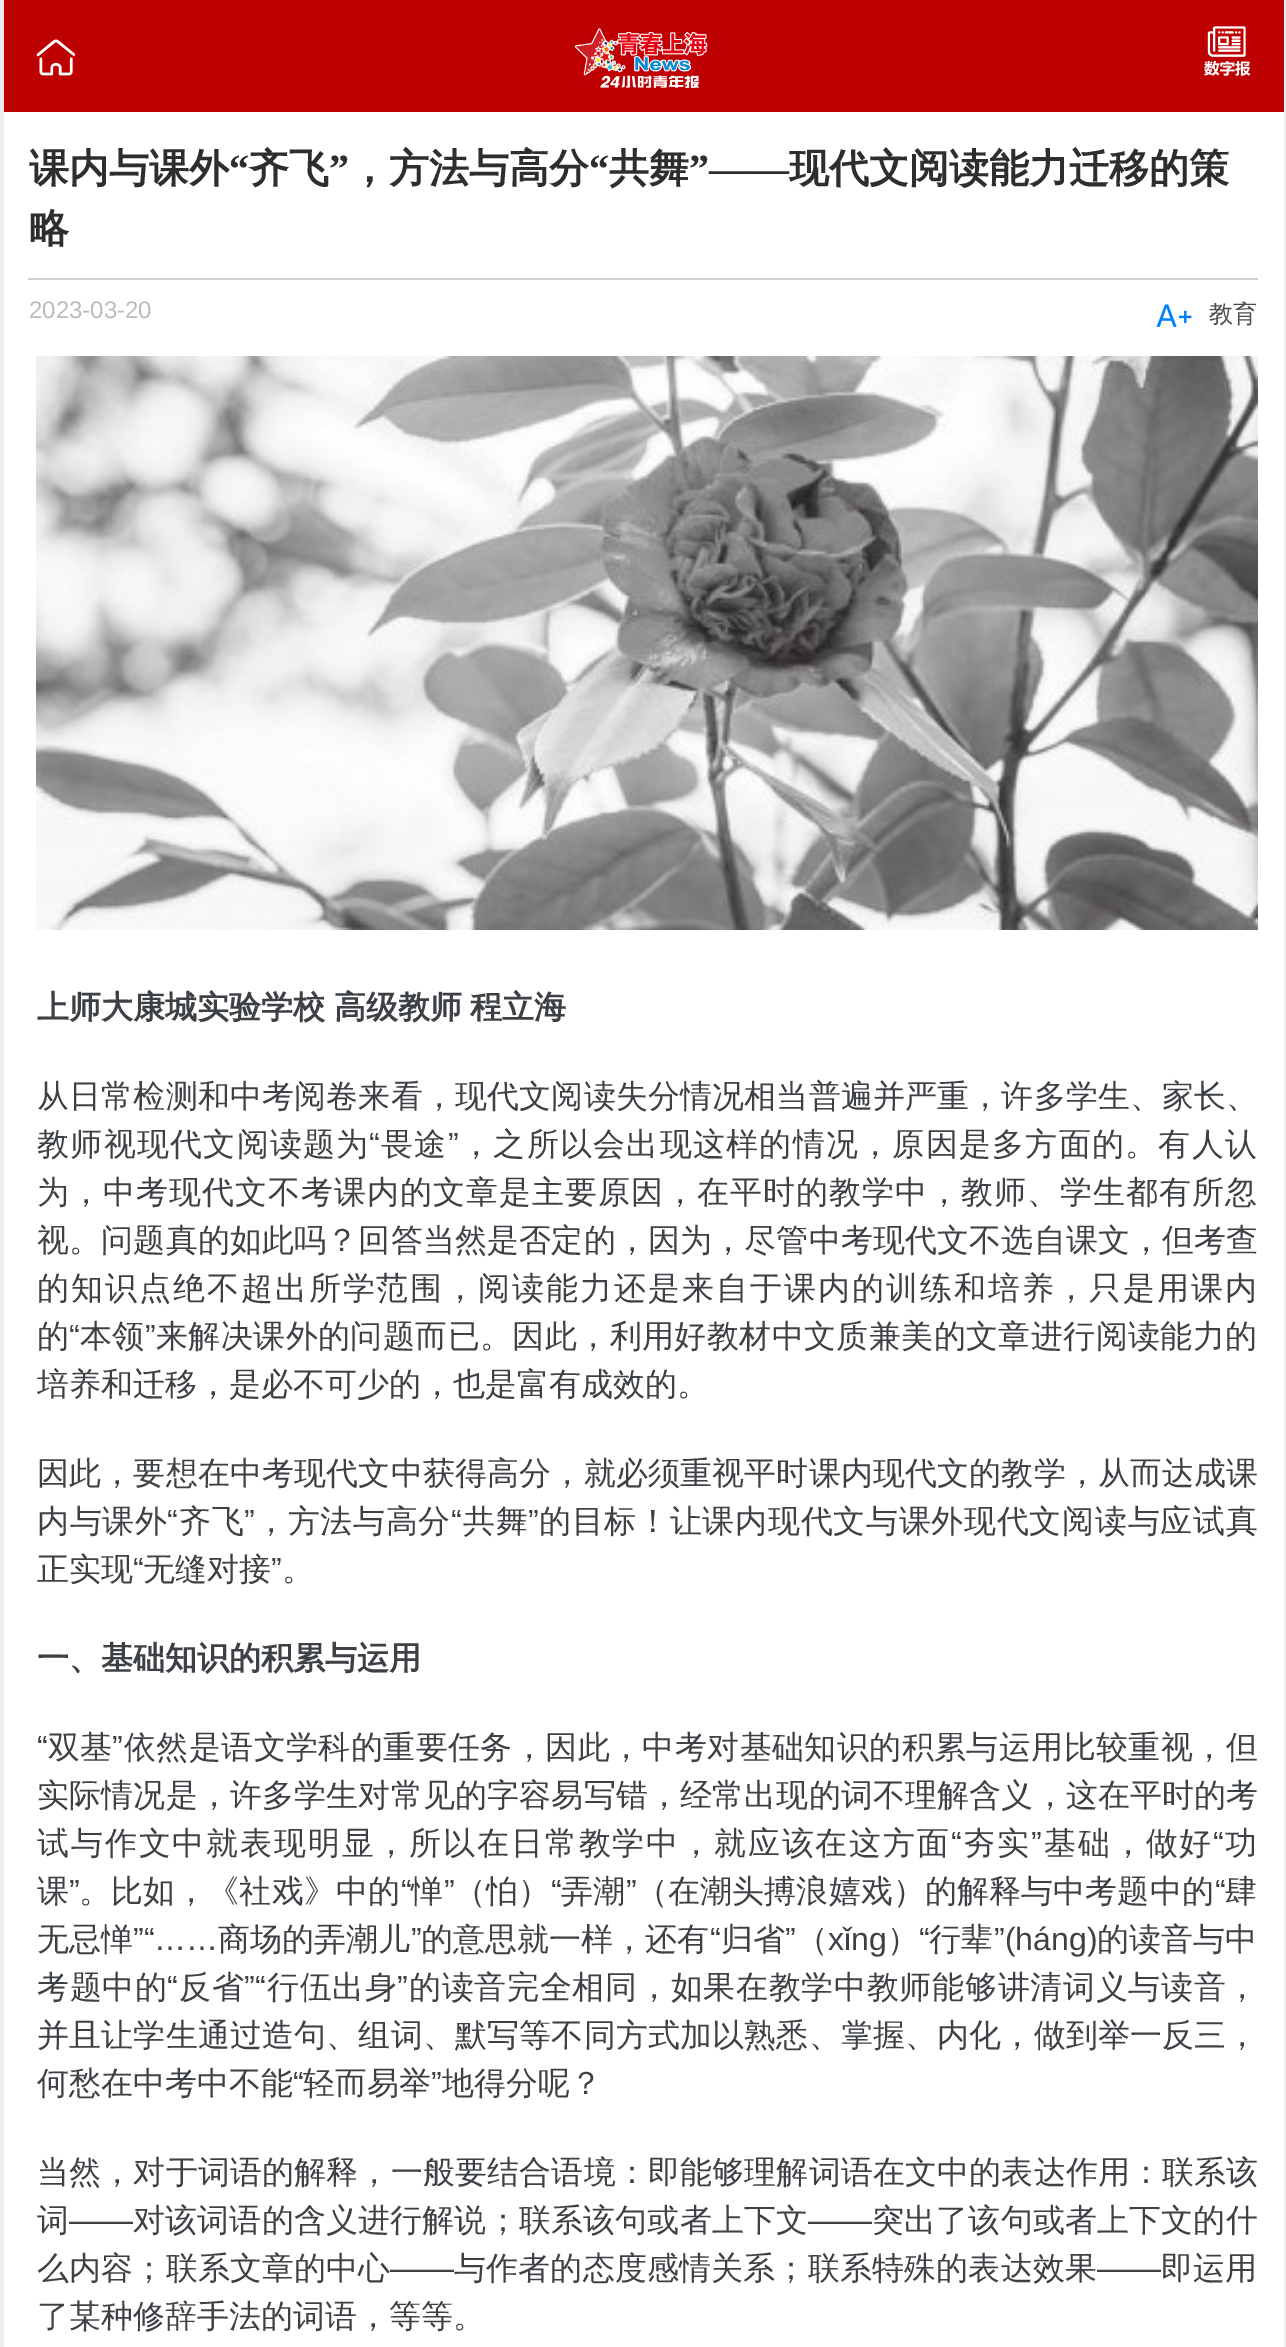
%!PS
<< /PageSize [1286 2347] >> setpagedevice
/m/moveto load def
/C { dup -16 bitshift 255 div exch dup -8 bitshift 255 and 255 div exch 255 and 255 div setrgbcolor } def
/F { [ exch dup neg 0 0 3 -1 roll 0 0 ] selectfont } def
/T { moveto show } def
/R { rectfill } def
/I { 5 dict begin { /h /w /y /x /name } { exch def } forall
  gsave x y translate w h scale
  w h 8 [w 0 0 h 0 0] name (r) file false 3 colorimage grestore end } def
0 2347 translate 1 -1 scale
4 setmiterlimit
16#EEEEEE C
0 0 1286 2347 R
16#FFFFFF C
4 112 1280 2235 R
16#BD0000 C
4 0 1280 112 R
(1.rgb) 36 39 40 37 I
(2.rgb) 574 28 134 60 I
(3.rgb) 1204 26 47 50 I
16#D0D0D0 C
28 278 1230 2 R
/WenQuanYiZenHei-Bold 40 F
16#2E2E2E C
(课内与课外) 29 182 T
/LiberationSerif-Bold 40 F
(“) 229 182 T
/WenQuanYiZenHei-Bold 40 F
(齐飞) 249 182 T
/LiberationSerif-Bold 40 F
(”) 329 182 T
/WenQuanYiZenHei-Bold 40 F
(，方法与高分) 349 182 T
/LiberationSerif-Bold 40 F
(“) 589 182 T
/WenQuanYiZenHei-Bold 40 F
(共舞) 609 182 T
/LiberationSerif-Bold 40 F
(”——) 689 182 T
/WenQuanYiZenHei-Bold 40 F
(现代文阅读能力迁移的策) 789 182 T
(略) 29 242 T
/LiberationSans-Regular 24 F
16#BBBBBB C
(2023-03-20) 29 318 T
(4.rgb) 1156 304 36 23 I
/WenQuanYiZenHei-Medium 24 F
16#4C4C4C C
(教育) 1209 322 T
(5.rgb) 36 356 1222 574 I
/WenQuanYiZenHei-Bold 32 F
16#3D4145 C
37 1018 m -1 0 32 (上师大康城实验学校 高级教师 程立海) widthshow
/WenQuanYiZenHei-Medium 32 F
37 1107 m .15 0 (从日常检测和中考阅卷来看，现代文阅读失分情况相当普遍并严重，许多学生、家长、) ashow
37 1155 m 1.25 0 (教师视现代文阅读题为) ashow
/LiberationSans-Regular 32 F
369 1155 m 1.25 0 (“) ashow
/WenQuanYiZenHei-Medium 32 F
381 1155 m 1.25 0 (畏途) ashow
/LiberationSans-Regular 32 F
448 1155 m 1.25 0 (”) ashow
/WenQuanYiZenHei-Medium 32 F
460 1155 m 1.25 0 (，之所以会出现这样的情况，原因是多方面的。有人认) ashow
37 1203 m 1 0 (为，中考现代文不考课内的文章是主要原因，在平时的教学中，教师、学生都有所忽) ashow
37 1251 m .15 0 (视。问题真的如此吗？回答当然是否定的，因为，尽管中考现代文不选自课文，但考查) ashow
37 1299 m 1.95 0 (的知识点绝不超出所学范围，阅读能力还是来自于课内的训练和培养，只是用课内) ashow
37 1347 m .4 0 (的) ashow
/LiberationSans-Regular 32 F
69 1347 m .4 0 (“) ashow
/WenQuanYiZenHei-Medium 32 F
80 1347 m .4 0 (本领) ashow
/LiberationSans-Regular 32 F
145 1347 m .4 0 (”) ashow
/WenQuanYiZenHei-Medium 32 F
156 1347 m .4 0 (来解决课外的问题而已。因此，利用好教材中文质兼美的文章进行阅读能力的) ashow
(培养和迁移，是必不可少的，也是富有成效的。) 37 1395 T
37 1484 m .15 0 (因此，要想在中考现代文中获得高分，就必须重视平时课内现代文的教学，从而达成课) ashow
37 1532 m .7 0 (内与课外) ashow
/LiberationSans-Regular 32 F
167 1532 m .7 0 (“) ashow
/WenQuanYiZenHei-Medium 32 F
179 1532 m .7 0 (齐飞) ashow
/LiberationSans-Regular 32 F
244 1532 m .7 0 (”) ashow
/WenQuanYiZenHei-Medium 32 F
255 1532 m .7 0 (，方法与高分) ashow
/LiberationSans-Regular 32 F
451 1532 m .7 0 (“) ashow
/WenQuanYiZenHei-Medium 32 F
463 1532 m .7 0 (共舞) ashow
/LiberationSans-Regular 32 F
528 1532 m .7 0 (”) ashow
/WenQuanYiZenHei-Medium 32 F
539 1532 m .7 0 (的目标！让课内现代文与课外现代文阅读与应试真) ashow
(正实现) 37 1580 T
/LiberationSans-Regular 32 F
(“) 133 1580 T
/WenQuanYiZenHei-Medium 32 F
(无缝对接) 143 1580 T
/LiberationSans-Regular 32 F
(”) 271 1580 T
/WenQuanYiZenHei-Medium 32 F
(。) 282 1580 T
/WenQuanYiZenHei-Bold 32 F
(一、基础知识的积累与运用) 37 1669 T
/LiberationSans-Regular 32 F
37 1758 m .4 0 (“) ashow
/WenQuanYiZenHei-Medium 32 F
48 1758 m .4 0 (双基) ashow
/LiberationSans-Regular 32 F
112 1758 m .4 0 (”) ashow
/WenQuanYiZenHei-Medium 32 F
124 1758 m .4 0 (依然是语文学科的重要任务，因此，中考对基础知识的积累与运用比较重视，但) ashow
37 1806 m .15 0 (实际情况是，许多学生对常见的字容易写错，经常出现的词不理解含义，这在平时的考) ashow
37 1854 m 1.85 0 (试与作文中就表现明显，所以在日常教学中，就应该在这方面) ashow
/LiberationSans-Regular 32 F
951 1854 m 1.85 0 (“) ashow
/WenQuanYiZenHei-Medium 32 F
963 1854 m 1.85 0 (夯实) ashow
/LiberationSans-Regular 32 F
1031 1854 m 1.85 0 (”) ashow
/WenQuanYiZenHei-Medium 32 F
1044 1854 m 1.85 0 (基础，做好) ashow
/LiberationSans-Regular 32 F
1213 1854 m 1.85 0 (“) ashow
/WenQuanYiZenHei-Medium 32 F
1225 1854 m 1.85 0 (功) ashow
37 1902 m .1 0 (课) ashow
/LiberationSans-Regular 32 F
69 1902 m .1 0 (”) ashow
/WenQuanYiZenHei-Medium 32 F
79 1902 m .1 0 (。比如，《社戏》中的) ashow
/LiberationSans-Regular 32 F
401 1902 m .1 0 (“) ashow
/WenQuanYiZenHei-Medium 32 F
411 1902 m .1 0 (惮) ashow
/LiberationSans-Regular 32 F
444 1902 m .1 0 (”) ashow
/WenQuanYiZenHei-Medium 32 F
454 1902 m .1 0 (（怕）) ashow
/LiberationSans-Regular 32 F
551 1902 m .1 0 (“) ashow
/WenQuanYiZenHei-Medium 32 F
561 1902 m .1 0 (弄潮) ashow
/LiberationSans-Regular 32 F
626 1902 m .1 0 (”) ashow
/WenQuanYiZenHei-Medium 32 F
636 1902 m .1 0 (（在潮头搏浪嬉戏）的解释与中考题中的) ashow
/LiberationSans-Regular 32 F
1215 1902 m .1 0 (“) ashow
/WenQuanYiZenHei-Medium 32 F
1225 1902 m .1 0 (肆) ashow
(无忌惮) 37 1950 T
/LiberationSans-Regular 32 F
(”“……) 133 1950 T
/WenQuanYiZenHei-Medium 32 F
(商场的弄潮儿) 218 1950 T
/LiberationSans-Regular 32 F
(”) 411 1950 T
/WenQuanYiZenHei-Medium 32 F
(的意思就一样，还有) 421 1950 T
/LiberationSans-Regular 32 F
(“) 710 1950 T
/WenQuanYiZenHei-Medium 32 F
(归省) 721 1950 T
/LiberationSans-Regular 32 F
(”) 785 1950 T
/WenQuanYiZenHei-Medium 32 F
(（) 796 1950 T
/LiberationSans-Regular 32 F
(xǐng) 828 1950 T
/WenQuanYiZenHei-Medium 32 F
(）) 887 1950 T
/LiberationSans-Regular 32 F
(“) 919 1950 T
/WenQuanYiZenHei-Medium 32 F
(行辈) 929 1950 T
/LiberationSans-Regular 32 F
(”\(háng\)) 994 1950 T
/WenQuanYiZenHei-Medium 32 F
(的读音与中) 1097 1950 T
37 1998 m .7 0 (考题中的) ashow
/LiberationSans-Regular 32 F
167 1998 m .7 0 (“) ashow
/WenQuanYiZenHei-Medium 32 F
179 1998 m .7 0 (反省) ashow
/LiberationSans-Regular 32 F
244 1998 m .7 0 (”“) ashow
/WenQuanYiZenHei-Medium 32 F
267 1998 m .7 0 (行伍出身) ashow
/LiberationSans-Regular 32 F
397 1998 m .7 0 (”) ashow
/WenQuanYiZenHei-Medium 32 F
409 1998 m .7 0 (的读音完全相同，如果在教学中教师能够讲清词义与读音，) ashow
37 2046 m .15 0 (并且让学生通过造句、组词、默写等不同方式加以熟悉、掌握、内化，做到举一反三，) ashow
(何愁在中考中不能) 37 2094 T
/LiberationSans-Regular 32 F
(“) 293 2094 T
/WenQuanYiZenHei-Medium 32 F
(轻而易举) 303 2094 T
/LiberationSans-Regular 32 F
(”) 431 2094 T
/WenQuanYiZenHei-Medium 32 F
(地得分呢？) 442 2094 T
37 2183 m .15 0 (当然，对于词语的解释，一般要结合语境：即能够理解词语在文中的表达作用：联系该) ashow
37 2231 m .15 0 (词) ashow
/LiberationSans-Regular 32 F
69 2231 m .15 0 (——) ashow
/WenQuanYiZenHei-Medium 32 F
133 2231 m .15 0 (对该词语的含义进行解说；联系该句或者上下文) ashow
/LiberationSans-Regular 32 F
808 2231 m .15 0 (——) ashow
/WenQuanYiZenHei-Medium 32 F
872 2231 m .15 0 (突出了该句或者上下文的什) ashow
37 2279 m .15 0 (么内容；联系文章的中心) ashow
/LiberationSans-Regular 32 F
390 2279 m .15 0 (——) ashow
/WenQuanYiZenHei-Medium 32 F
454 2279 m .15 0 (与作者的态度感情关系；联系特殊的表达效果) ashow
/LiberationSans-Regular 32 F
1097 2279 m .15 0 (——) ashow
/WenQuanYiZenHei-Medium 32 F
1161 2279 m .15 0 (即运用) ashow
(了某种修辞手法的词语，等等。) 37 2327 T
showpage
